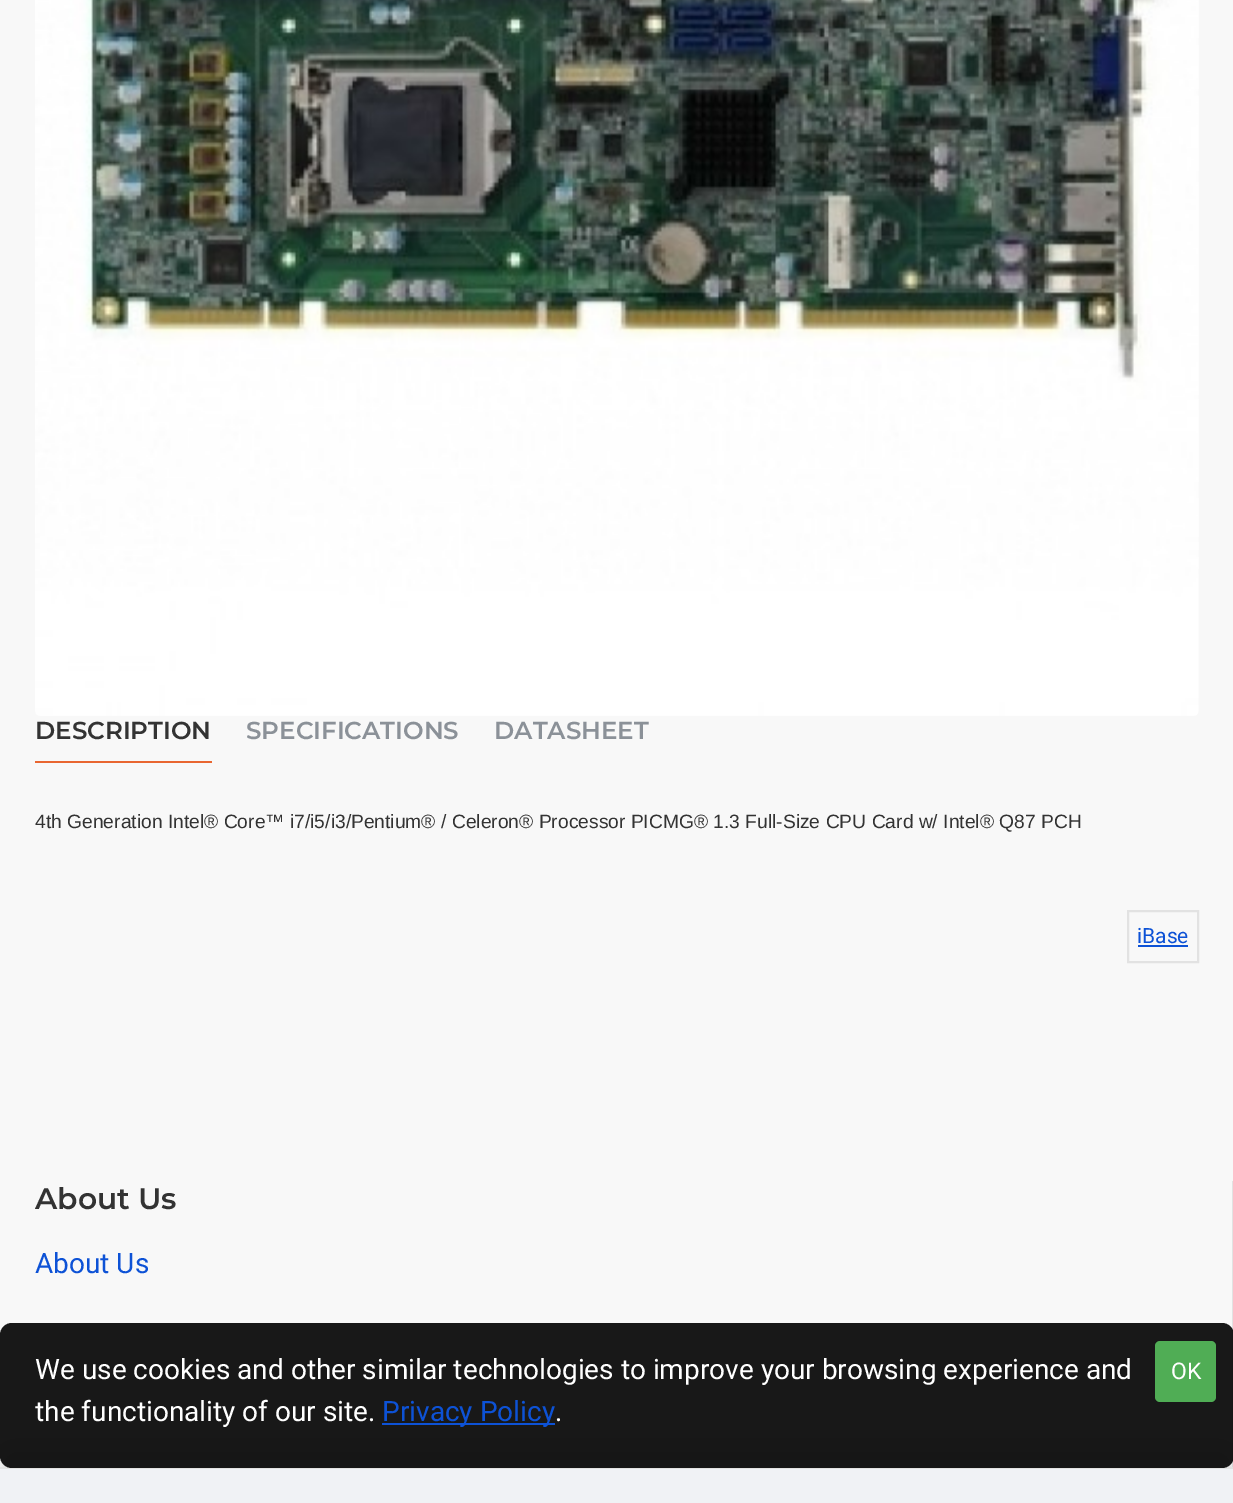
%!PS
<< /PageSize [1233 1503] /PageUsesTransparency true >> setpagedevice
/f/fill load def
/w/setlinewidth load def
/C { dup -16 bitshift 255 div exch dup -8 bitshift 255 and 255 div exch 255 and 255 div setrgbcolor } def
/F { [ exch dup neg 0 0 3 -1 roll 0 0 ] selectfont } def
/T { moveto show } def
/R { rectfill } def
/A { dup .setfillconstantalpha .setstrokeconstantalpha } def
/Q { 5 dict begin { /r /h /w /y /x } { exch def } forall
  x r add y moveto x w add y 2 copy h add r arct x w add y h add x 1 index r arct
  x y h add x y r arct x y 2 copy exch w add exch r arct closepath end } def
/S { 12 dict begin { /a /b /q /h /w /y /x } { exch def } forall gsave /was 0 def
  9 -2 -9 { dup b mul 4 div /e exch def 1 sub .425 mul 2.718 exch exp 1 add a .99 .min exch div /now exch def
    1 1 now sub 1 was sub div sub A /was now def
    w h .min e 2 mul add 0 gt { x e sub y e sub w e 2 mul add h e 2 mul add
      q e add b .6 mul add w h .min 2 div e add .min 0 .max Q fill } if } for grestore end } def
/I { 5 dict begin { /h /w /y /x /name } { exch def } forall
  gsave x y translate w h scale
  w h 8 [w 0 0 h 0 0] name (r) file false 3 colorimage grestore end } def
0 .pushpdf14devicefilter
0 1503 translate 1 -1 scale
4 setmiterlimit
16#F8F8F8 C
0 0 1233 1503 R
(1.rgb) 35 0 1164 716 I
16#E96631 C
35 761 177 2 R
/Montserrat-SemiBold 24.5 F
16#333333 C
(DESCRIPTION) 35 739 T
16#8B9198 C
(SPECIFICATIONS) 246 739 T
(DATASHEET) 494 739 T
/LiberationSans-Regular 19.25 F
16#333333 C
(4th Generation Intel® Core™ i7/i5/i3/Pentium® / Celeron® Processor PICMG® 1.3 Full-Size CPU Card w/ Intel® Q87 PCH) 35 828 T
16#E2E2E2 C
2 w
1128 911 70 51 rectstroke
/Roboto-Regular 21 F
16#0D52D6 C
(iBase) 1137 943 T
1138 945 50 2 R
16#E2E2E2 C
1232 1181 1 286 R
16#000000 C
9 1458 1216 19 0 26 .15 S
16#F0F2F5 C
0 1469 1233 34 R
16#E2E2E2 C
0 1467 1233 2 R
/Montserrat-SemiBold 29.75 F
16#333333 C
(About Us) 35 1209 T
/Roboto-Regular 28 F
16#0D52D6 C
(About Us) 35 1273 T
0.9 A
16#000000 C
0 1323 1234 145 12 Q f
1 A
16#FFFFFF C
(We use cookies and other similar technologies to improve your browsing experience and) 35 1379 T
(the functionality of our site.) 35 1421 T
16#0D52D6 C
382 1423 173 2 R
(Privacy Policy) 382 1421 T
16#FFFFFF C
(.) 555 1421 T
16#50AD55 C
1155 1341 61 61 5 Q f
/Roboto-Regular 23 F
16#FFFFFF C
(OK) 1171 1379 T
.poppdf14devicefilter showpage
